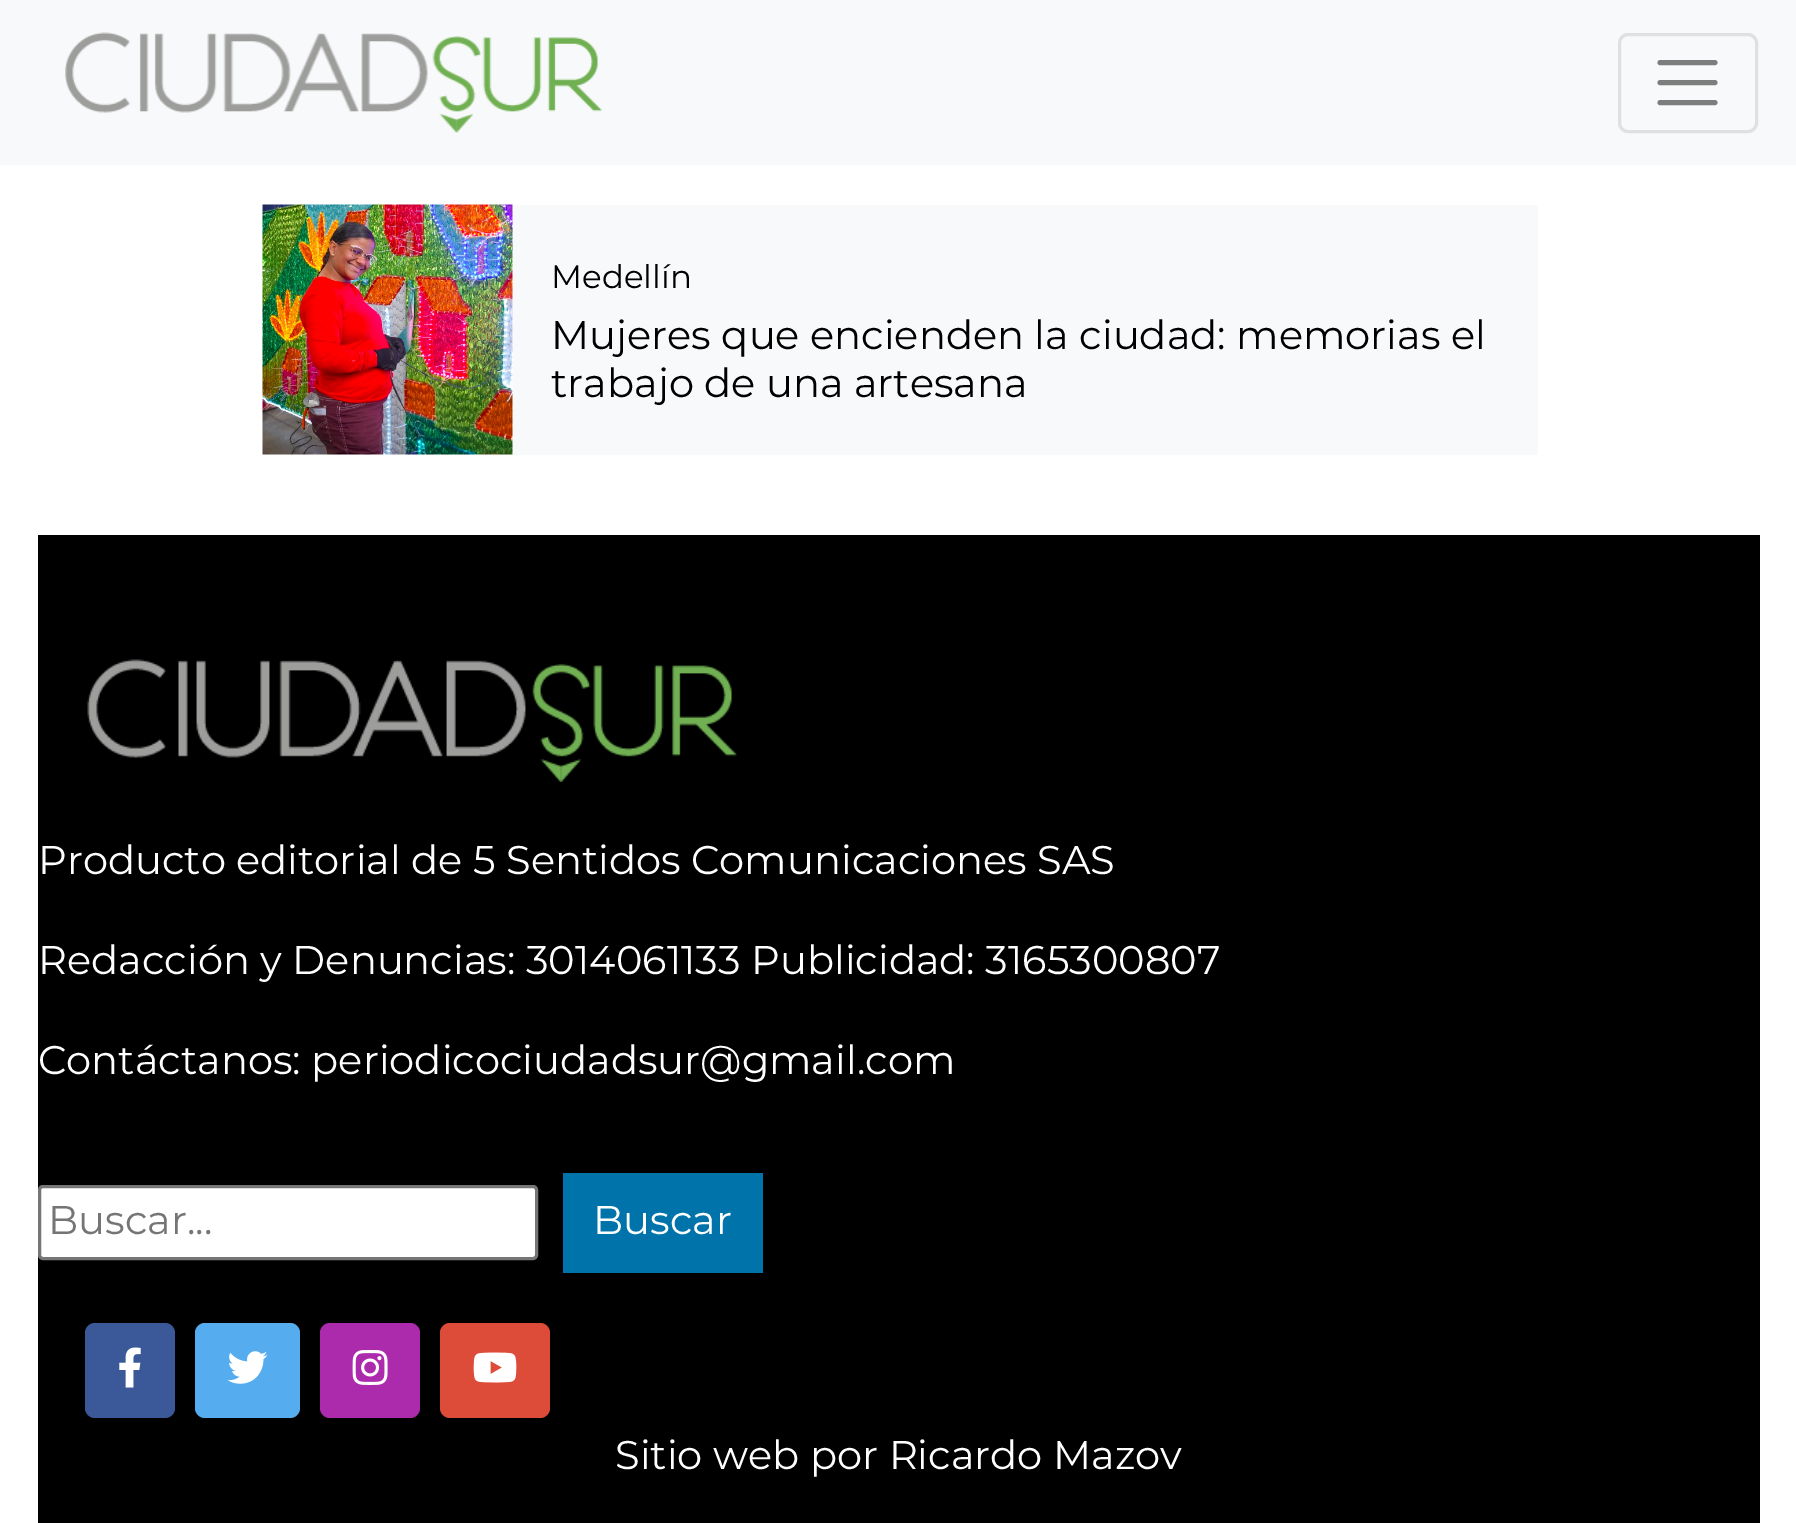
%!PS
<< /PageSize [1796 1523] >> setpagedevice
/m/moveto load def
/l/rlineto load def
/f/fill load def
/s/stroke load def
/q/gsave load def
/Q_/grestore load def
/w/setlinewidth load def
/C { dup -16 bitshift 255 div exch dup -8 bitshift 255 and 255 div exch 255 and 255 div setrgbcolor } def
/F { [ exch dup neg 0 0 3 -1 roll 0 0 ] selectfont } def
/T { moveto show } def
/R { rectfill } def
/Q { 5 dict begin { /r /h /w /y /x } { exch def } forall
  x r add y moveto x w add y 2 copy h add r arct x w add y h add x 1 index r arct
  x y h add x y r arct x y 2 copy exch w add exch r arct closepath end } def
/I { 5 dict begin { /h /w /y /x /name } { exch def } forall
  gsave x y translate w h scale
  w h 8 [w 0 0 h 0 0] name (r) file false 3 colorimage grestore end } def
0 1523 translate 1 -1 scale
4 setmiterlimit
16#FFFFFF C
0 0 1796 1523 R
16#F8F9FA C
0 0 1796 165 R
(1.rgb) 65 32 538 101 I
16#DFE0E1 C
3 w
1619.5 34.5 137 97 8.5 Q s
16#7C7D7D C
5 w
1 setlinecap
1660 62.5 m 55 0 l 1660 82.5 m 55 0 l 1660 102.5 m 55 0 l s
(2.rgb) 262 204 251 251 I
16#F8F9FA C
513 205 1025 250 R
/Montserrat-Thin 32.5 F
16#000000 C
(Medellín) 551 288 T
/Montserrat-Thin 40 F
(Mujeres que encienden la ciudad: memorias el) 551 349 T
(trabajo de una artesana) 551 397 T
38 535 1722 988 R
(3.rgb) 87 659 650 123 I
16#FFFFFF C
(Producto editorial de 5 Sentidos Comunicaciones SAS) 38 874 T
(Redacción y Denuncias: 3014061133 Publicidad: 3165300807) 38 974 T
(Contáctanos: periodicociudadsur@gmail.com) 38 1074 T
39.5 1186.5 497 72 3.5 Q q f Q_
16#767676 C
3 w
0 setlinecap
s
16#757575 C
(Buscar...) 48 1234 T
16#0073AA C
563 1173 200 100 R
16#FFFFFF C
(Buscar) 593 1234 T
16#3B5998 C
85 1323 90 95 10 Q f
(4.rgb) 119 1347 22 41 I
16#55ACEE C
195 1323 105 95 10 Q f
(5.rgb) 227 1351 41 33 I
16#AC2BAC C
320 1323 100 95 10 Q f
(6.rgb) 352 1350 36 35 I
16#DD4B39 C
440 1323 110 95 10 Q f
(7.rgb) 473 1352 44 31 I
16#FFFFFF C
(Sitio web por Ricardo Mazov) 615 1469 T
showpage
